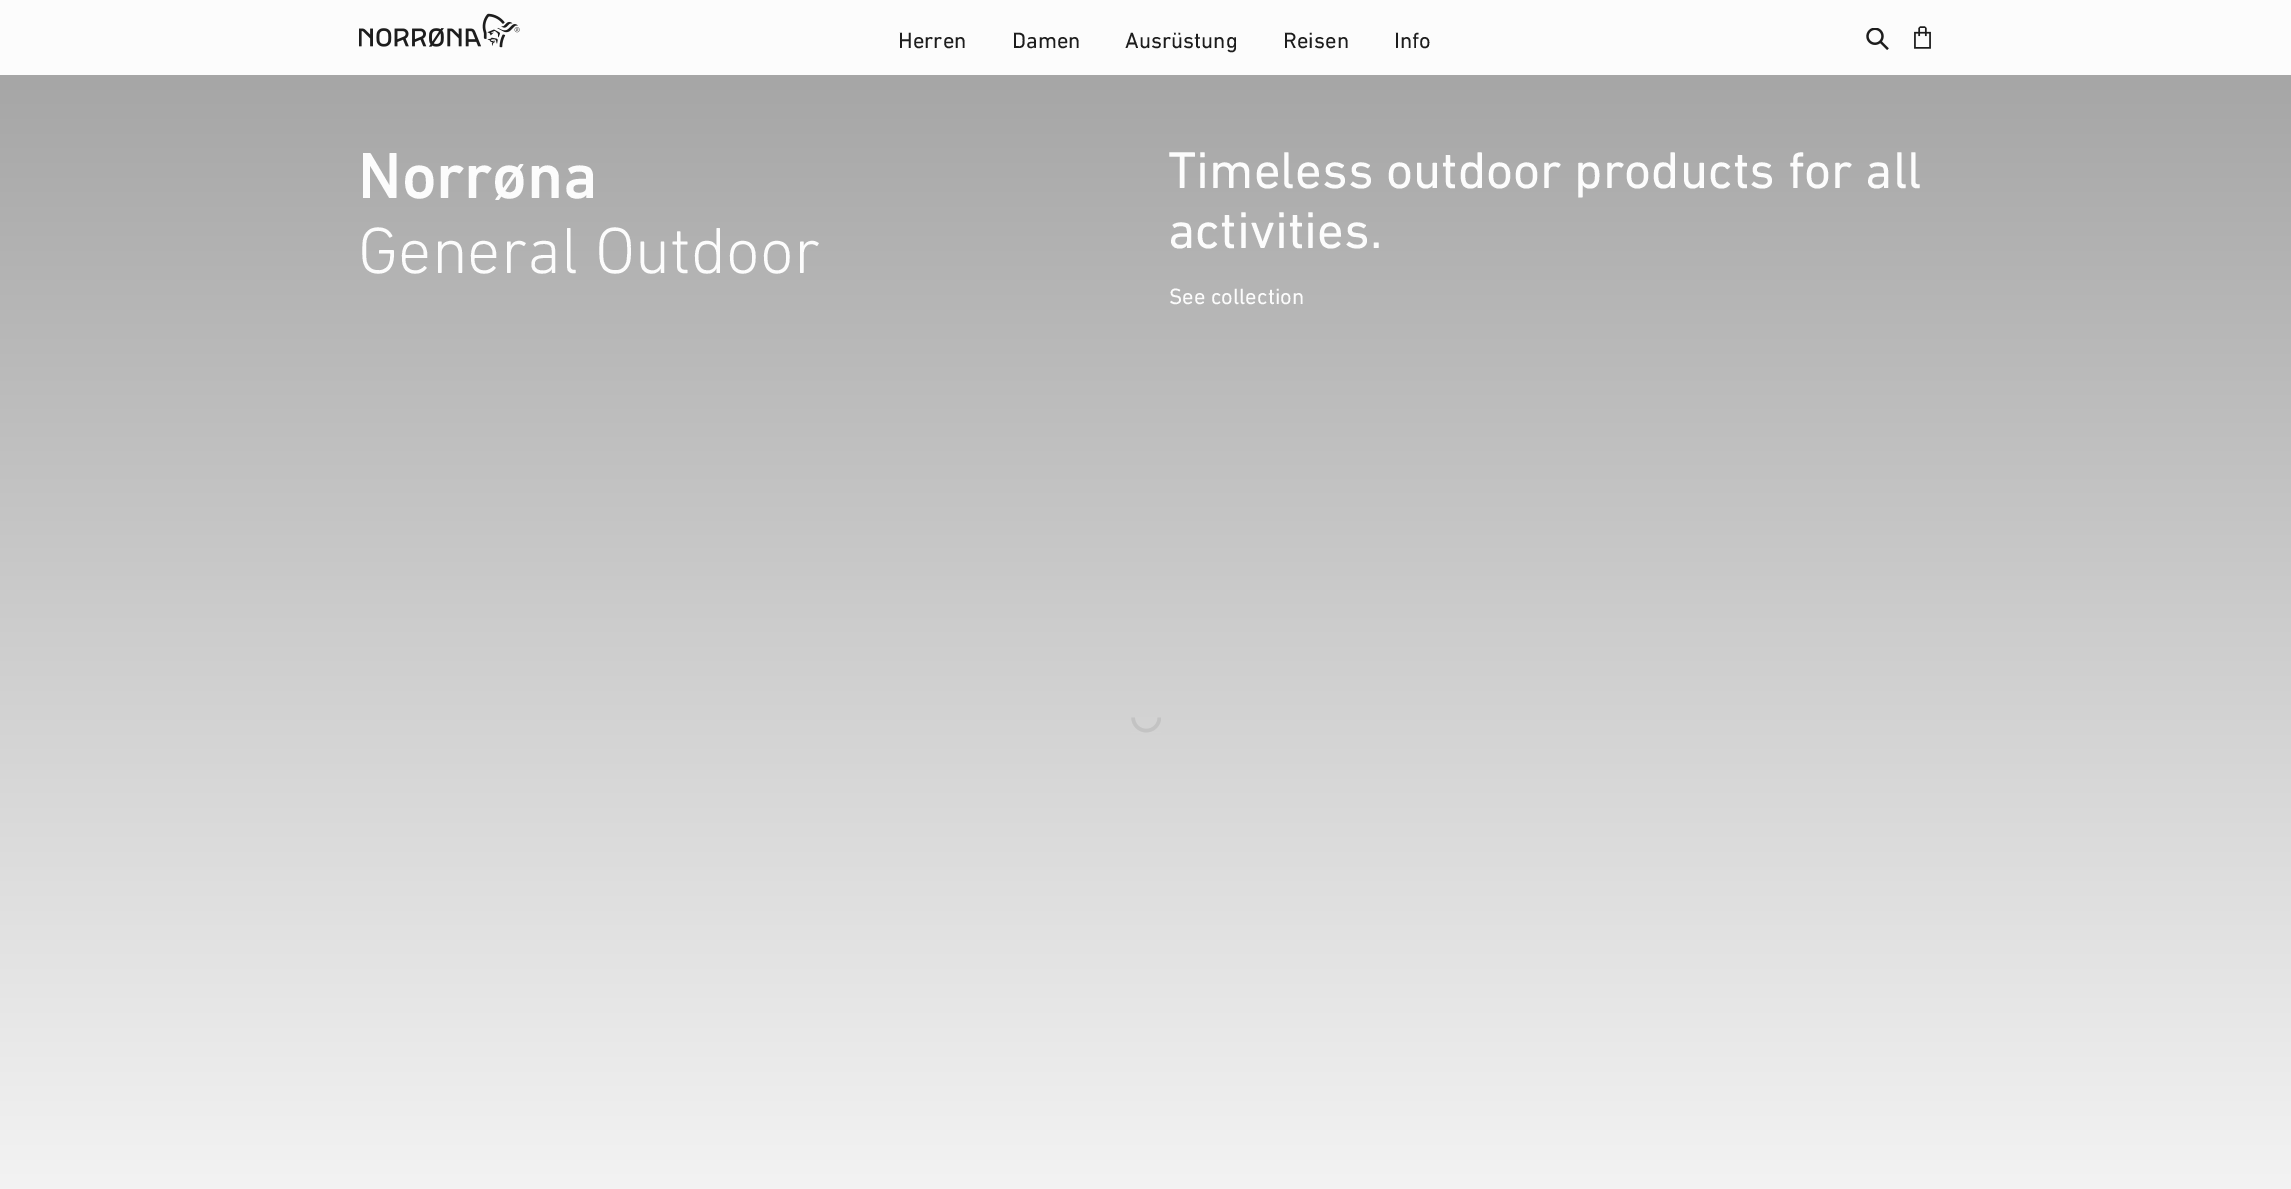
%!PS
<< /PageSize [2291 1189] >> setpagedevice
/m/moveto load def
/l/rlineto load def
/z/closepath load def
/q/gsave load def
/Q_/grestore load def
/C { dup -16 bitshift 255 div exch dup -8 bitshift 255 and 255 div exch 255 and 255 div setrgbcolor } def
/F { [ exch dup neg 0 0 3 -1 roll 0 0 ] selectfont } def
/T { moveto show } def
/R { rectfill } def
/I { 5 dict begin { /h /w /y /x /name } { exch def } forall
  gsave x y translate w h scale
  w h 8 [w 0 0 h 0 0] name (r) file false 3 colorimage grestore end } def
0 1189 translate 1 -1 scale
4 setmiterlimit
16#FCFCFC C
0 0 2291 1189 R
(1.rgb) 359 13 161 35 I
(2.rgb) 1866 28 23 22 I
(3.rgb) 1914 26 17 23 I
/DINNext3-Regular 22.5 F
16#1D1D1D C
(Herren) 898 48 T
(Damen) 1012 48 T
(Ausrüstung) 1125 48 T
(Reisen) 1283 48 T
(Info) 1394 48 T
q 0 75 m 2291 0 l 0 1114 l -2291 0 l z clip newpath
<< /ShadingType 2 /ColorSpace /DeviceRGB /Coords [1146 75 1146 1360] /Extend [true true] /Function << /FunctionType 2 /Domain [0 1] /C0 [.651 .651 .651] /C1 [1 1 1] /N 1 >> >> shfill Q_
/DINNext-Regular 66.25 F
16#FCFCFC C
(Norrøna) 358 198 T
/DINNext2-Regular 66.25 F
(General Outdoor) 358 273 T
/DINNext3-Regular 52.5 F
(Timeless outdoor products for all) 1168 188 T
(activities.) 1168 248 T
/DINNext3-Regular 22.5 F
(See collection) 1169 304 T
(4.rgb) 1131 717 30 16 I
showpage
